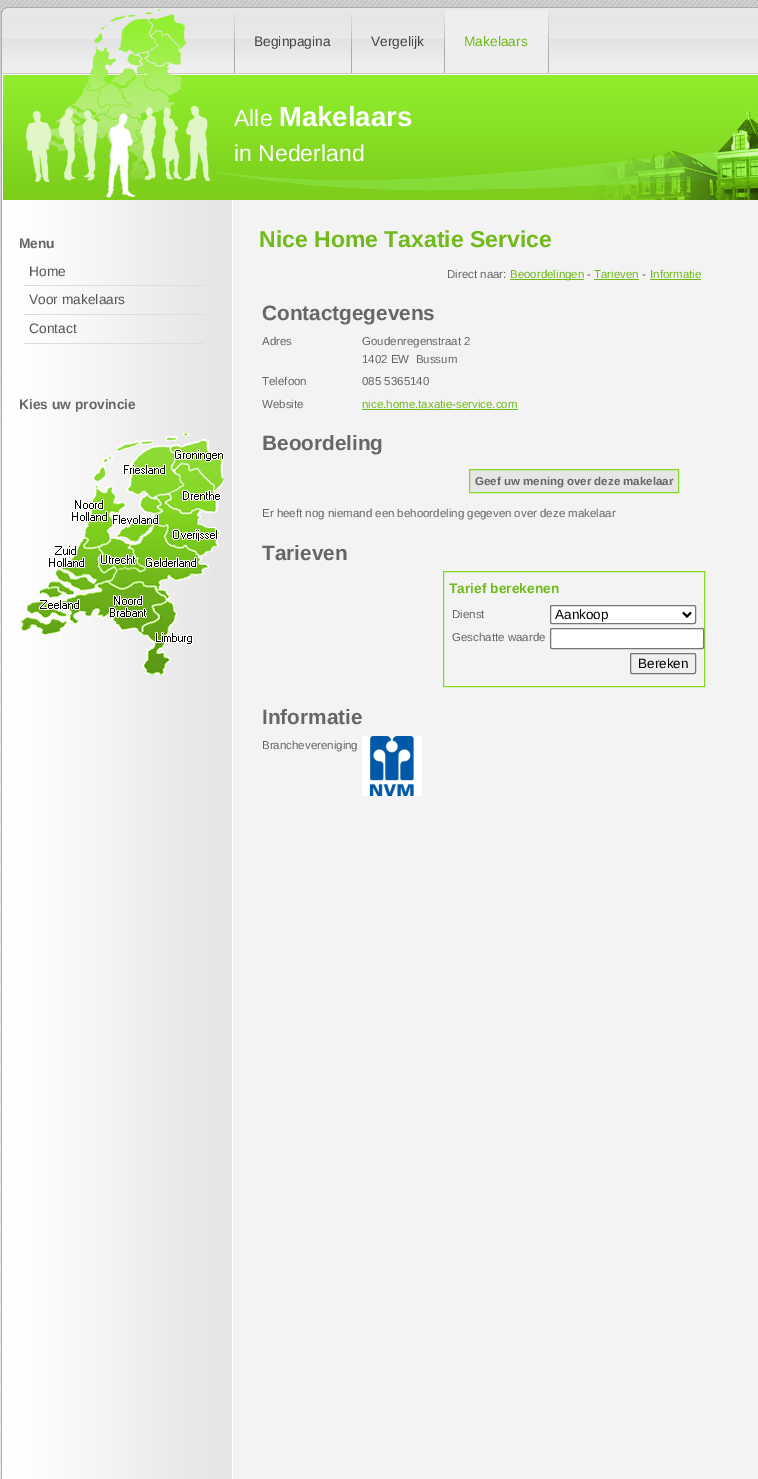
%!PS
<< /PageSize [758 1479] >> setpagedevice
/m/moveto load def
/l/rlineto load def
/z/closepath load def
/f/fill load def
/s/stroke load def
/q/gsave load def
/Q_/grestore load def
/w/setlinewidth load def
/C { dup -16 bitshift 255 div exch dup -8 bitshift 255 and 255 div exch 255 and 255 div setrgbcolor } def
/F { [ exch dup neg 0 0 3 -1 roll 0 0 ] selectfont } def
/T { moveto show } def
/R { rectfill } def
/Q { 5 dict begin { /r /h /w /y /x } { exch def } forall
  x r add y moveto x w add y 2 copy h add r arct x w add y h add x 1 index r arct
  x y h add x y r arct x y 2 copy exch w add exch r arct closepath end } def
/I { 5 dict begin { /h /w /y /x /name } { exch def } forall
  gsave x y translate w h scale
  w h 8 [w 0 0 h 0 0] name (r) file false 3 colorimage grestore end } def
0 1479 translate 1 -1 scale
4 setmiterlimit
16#FFFFFF C
0 0 758 1479 R
(1.rgb) 0 600 1 879 I
(2.rgb) 0 0 1 600 I
(3.rgb) 1 200 757 1279 I
(4.rgb) 1 0 757 200 I
(5.rgb) 548 13 1 60 I
(6.rgb) 234 13 1 60 I
/LiberationSans-Regular 13.75 F
16#444444 C
(Beginpagina) 254 46 T
(6.rgb) 351 13 1 60 I
(Vergelijk) 371 46 T
16#EEEEEE C
445 10 103 49 R
(7.rgb) 444 10 1 63 I
16#70BA1B C
(Makelaars) 464 46 T
/LiberationSans-Regular 23 F
16#FFFFFF C
(Alle) 234 126 T
/LiberationSans-Bold 27.5 F
(Makelaars) 279 126 T
/LiberationSans-Regular 23 F
(in Nederland) 234 161 T
/LiberationSans-Bold 13.75 F
16#666666 C
(Menu) 19 248 T
16#DDDDDD C
24 285 180 1 R
/LiberationSans-Regular 13.75 F
16#555555 C
(Home) 29 276 T
16#DDDDDD C
24 314 180 1 R
16#555555 C
(Voor makelaars) 29 304 T
16#DDDDDD C
24 343 180 1 R
16#555555 C
(Contact) 29 333 T
/LiberationSans-Bold 13.75 F
16#666666 C
(Kies uw provincie) 19 409 T
(8.rgb) 21 433 203 242 I
/LiberationSans-Bold 23 F
16#70BA1B C
(Nice Home Taxatie Service) 259 247 T
/LiberationSans-Regular 11.5 F
16#666666 C
(Direct naar:) 447 278 T
16#70BA1B C
510 279 74 1 R
(Beoordelingen) 510 278 T
16#666666 C
(-) 587 278 T
16#70BA1B C
(Tarieven) 594 278 T
594 279 45 1 R
16#666666 C
(-) 642 278 T
16#70BA1B C
(Informatie) 650 278 T
650 279 51 1 R
/LiberationSans-Bold 20.75 F
16#666666 C
(Contactgegevens) 262 320 T
/LiberationSans-Regular 11.5 F
(Adres) 262 345 T
(Goudenregenstraat 2) 362 345 T
(1402 EW  Bussum) 362 363 T
(Telefoon) 262 385 T
(085 5365140) 362 385 T
(Website) 262 408 T
16#70BA1B C
(nice.home.taxatie-service.com) 362 408 T
362 409 156 1 R
/LiberationSans-Bold 20.75 F
16#666666 C
(Beoordeling) 262 450 T
16#E6E6E6 C
469.5 469.5 m 209 0 l 0 23 l -209 0 l z q f Q_
16#84DA22 C
s
/LiberationSans-Bold 11.5 F
16#666666 C
(Geef uw mening over deze makelaar) 475 485 T
/LiberationSans-Regular 11.5 F
(Er heeft nog niemand een behoordeling gegeven over deze makelaar) 262 517 T
/LiberationSans-Bold 20.75 F
(Tarieven) 262 560 T
16#84DA22 C
443.5 571.5 261 115 rectstroke
/LiberationSans-Bold 13.75 F
16#70BA1B C
(Tarief berekenen) 449 593 T
/LiberationSans-Regular 11.5 F
16#666666 C
(Dienst) 452 618 T
16#FFFFFF C
550.5 605.5 145 18 1.5 Q q f Q_
16#767676 C
s
16#000000 C
2 w
683 612.5 m 4 4 l 4 -4 l s
/LiberationSans-Regular 13.5 F
(Aankoop) 555 619 T
/LiberationSans-Regular 11.5 F
16#666666 C
(Geschatte waarde) 452 641 T
16#FFFFFF C
550.5 628.5 153 20 1.5 Q q f Q_
16#767676 C
1 w
s
16#EFEFEF C
630.5 653.5 65 20 1.5 Q q f Q_
16#767676 C
s
/LiberationSans-Regular 13.5 F
16#000000 C
(Bereken) 638 668 T
/LiberationSans-Bold 20.75 F
16#666666 C
(Informatie) 262 724 T
/LiberationSans-Regular 11.5 F
(Branchevereniging) 262 749 T
(9.rgb) 362 736 60 60 I
showpage
